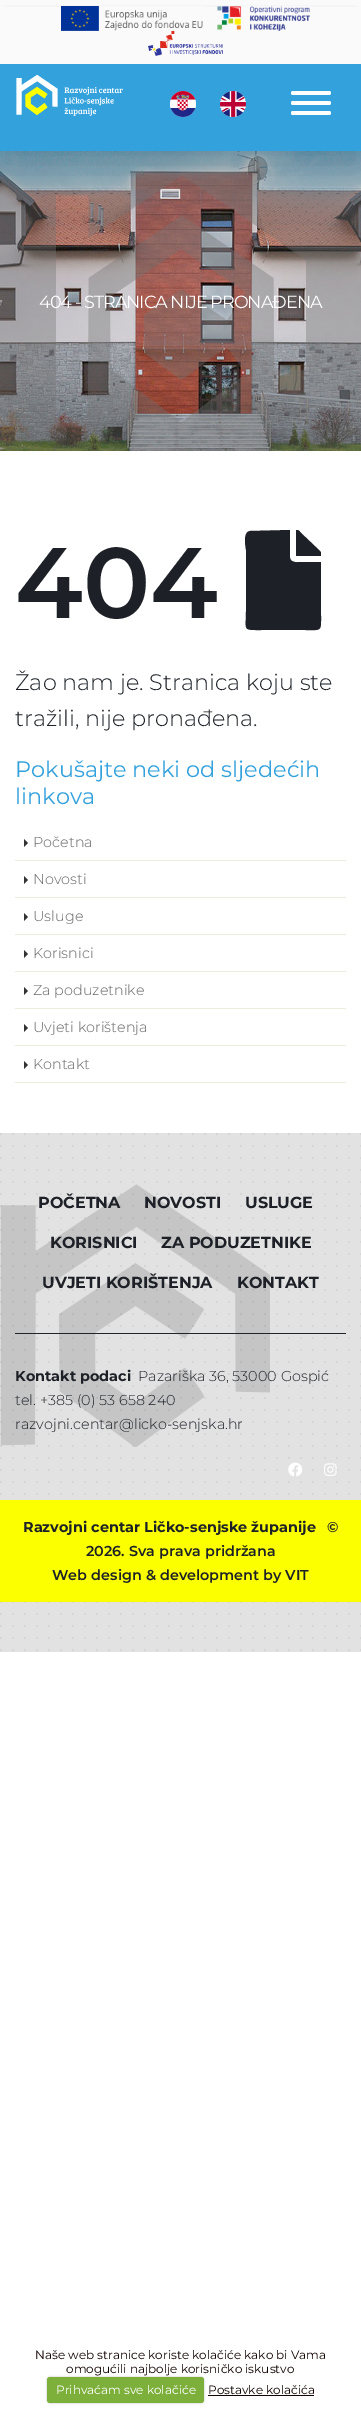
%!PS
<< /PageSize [361 2413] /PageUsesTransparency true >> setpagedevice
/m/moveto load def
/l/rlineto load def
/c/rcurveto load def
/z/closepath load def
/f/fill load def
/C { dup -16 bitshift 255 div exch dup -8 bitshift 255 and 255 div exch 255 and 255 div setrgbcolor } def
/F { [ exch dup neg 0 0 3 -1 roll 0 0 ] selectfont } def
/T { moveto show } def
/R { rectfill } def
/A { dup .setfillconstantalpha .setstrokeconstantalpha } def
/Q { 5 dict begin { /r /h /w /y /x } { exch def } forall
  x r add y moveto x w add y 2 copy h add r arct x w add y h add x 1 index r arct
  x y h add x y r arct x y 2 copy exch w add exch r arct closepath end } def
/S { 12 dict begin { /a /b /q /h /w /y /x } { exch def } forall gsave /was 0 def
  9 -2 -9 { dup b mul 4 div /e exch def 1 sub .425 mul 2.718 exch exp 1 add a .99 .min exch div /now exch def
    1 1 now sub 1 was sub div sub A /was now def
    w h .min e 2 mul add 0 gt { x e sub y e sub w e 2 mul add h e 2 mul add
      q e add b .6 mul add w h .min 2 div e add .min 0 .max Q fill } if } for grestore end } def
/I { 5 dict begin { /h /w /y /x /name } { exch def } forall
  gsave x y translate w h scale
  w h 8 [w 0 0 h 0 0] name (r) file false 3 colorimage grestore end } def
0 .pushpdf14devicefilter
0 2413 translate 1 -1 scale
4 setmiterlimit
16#FFFFFF C
0 0 361 2413 R
(7.rgb) 0 151 361 300 I
(8.rgb) 0 151 361 300 I
16#000000 C
0 20 361 151 0 20 .12 S
16#33A1DC C
0 64 361 87 R
16#FAFAFA C
0 7 361 57 R
(1.rgb) 61 6 142 25 I
(2.rgb) 217 6 93 25 I
(3.rgb) 148 31 75 25 I
(4.rgb) 16 74 107 42 I
(5.rgb) 170 91 26 26 I
(6.rgb) 220 91 26 26 I
16#FFFFFF C
291 101 40 4 2 Q f
291 91 40 4 2 Q f
291 111 40 4 2 Q f
/Montserrat-Regular 17.6 F
39 308 m -1 0 (404 - STRANICA NIJE PRONAĐENA) ashow
/Montserrat-SemiBold 100 F
16#1D2127 C
(404) 15 618 T
290 557 m 0 7 10 5 13 5 c 18 0 l 0 53 l 0 17 1 15 -16 15 c -43 0 l -20 0 -16 1 -16 -19 c 0 -61 l 0 -1 -4 -18 4 -19 c 40 -1 l z 321 554 m 0 2 l -25 0 l 0 -26 l 1 0 l 1 0 3 1 3 2 c 20 19 l 1 1 1 2 1 3 c z f
/Montserrat-Light 22.4 F
(Žao nam je. Stranica koju ste) 15 690 T
(tražili, nije pronađena.) 15 726 T
/Montserrat-Regular 22.4 F
16#33A1DC C
(Pokušajte neki od sljedećih) 15 777 T
(linkova) 15 804 T
16#EDEDDE C
15 860 331 1 R
16#333333 C
24 847 m 0 -8 l 4 4 l z f
/Montserrat-Light 14.4 F
16#666666 C
(Početna) 33 847 T
16#EDEDDE C
15 897 331 1 R
16#333333 C
24 884 m 0 -8 l 4 4 l z f
16#666666 C
(Novosti) 33 884 T
16#EDEDDE C
15 934 331 1 R
16#333333 C
24 921 m 0 -8 l 4 4 l z f
16#666666 C
(Usluge) 33 921 T
16#EDEDDE C
15 971 331 1 R
16#333333 C
24 958 m 0 -8 l 4 4 l z f
16#666666 C
(Korisnici) 33 958 T
16#EDEDDE C
15 1008 331 1 R
16#333333 C
24 995 m 0 -8 l 4 4 l z f
16#666666 C
(Za poduzetnike) 33 995 T
16#EDEDDE C
15 1045 331 1 R
16#333333 C
24 1032 m 0 -8 l 4 4 l z f
16#666666 C
(Uvjeti korištenja) 33 1032 T
16#EDEDDE C
15 1082 331 1 R
16#333333 C
24 1069 m 0 -8 l 4 4 l z f
16#666666 C
(Kontakt) 33 1069 T
16#E2E2E2 C
0 1133 361 519 R
(9.rgb) 0 1133 361 518 I
(10.rgb) 0 1184 270 263 I
16#212529 C
15 1333 331 1 R
/Montserrat-Bold 16 F
16#1D2127 C
(POČETNA) 38 1208 T
(NOVOSTI) 144 1208 T
(USLUGE) 245 1208 T
(KORISNICI) 50 1248 T
(ZA PODUZETNIKE) 161 1248 T
(UVJETI KORIŠTENJA) 42 1288 T
(KONTAKT) 237 1288 T
/Montserrat-Bold 14.4 F
(Kontakt podaci) 15 1381 T
/Montserrat-Light 14.4 F
(Pazariška 36, 53000 Gospić) 138 1381 T
(tel. +385 \(0\) 53 658 240) 15 1405 T
(razvojni.centar@licko-senjska.hr) 15 1429 T
(11.rgb) 288 1462 15 15 I
(12.rgb) 324 1463 13 13 I
16#FBFF00 C
0 1500 361 102 R
/Montserrat-Bold 14.4 F
16#1D2127 C
(Razvojni centar Ličko-senjske županije) 23 1532 T
/Montserrat-SemiBold 14.4 F
(©) 327 1532 T
(2026. Sva prava pridržana) 86 1556 T
(Web design & development by VIT) 52 1580 T
/Montserrat-Regular 12 F
16#110300 C
(Naše web stranice koriste kolačiće kako bi Vama) 35 2359 T
(omogućili najbolje korisničko iskustvo) 66 2373 T
16#000000 C
47 2377 157 26 3 1 .25 S
16#7DAF3B C
47 2377 157 26 3 Q f
16#FFFFFF C
(Prihvaćam sve kolačiće) 56 2394 T
16#110300 C
(Postavke kolačića) 208 2394 T
208 2395 106 1 R
.poppdf14devicefilter showpage
